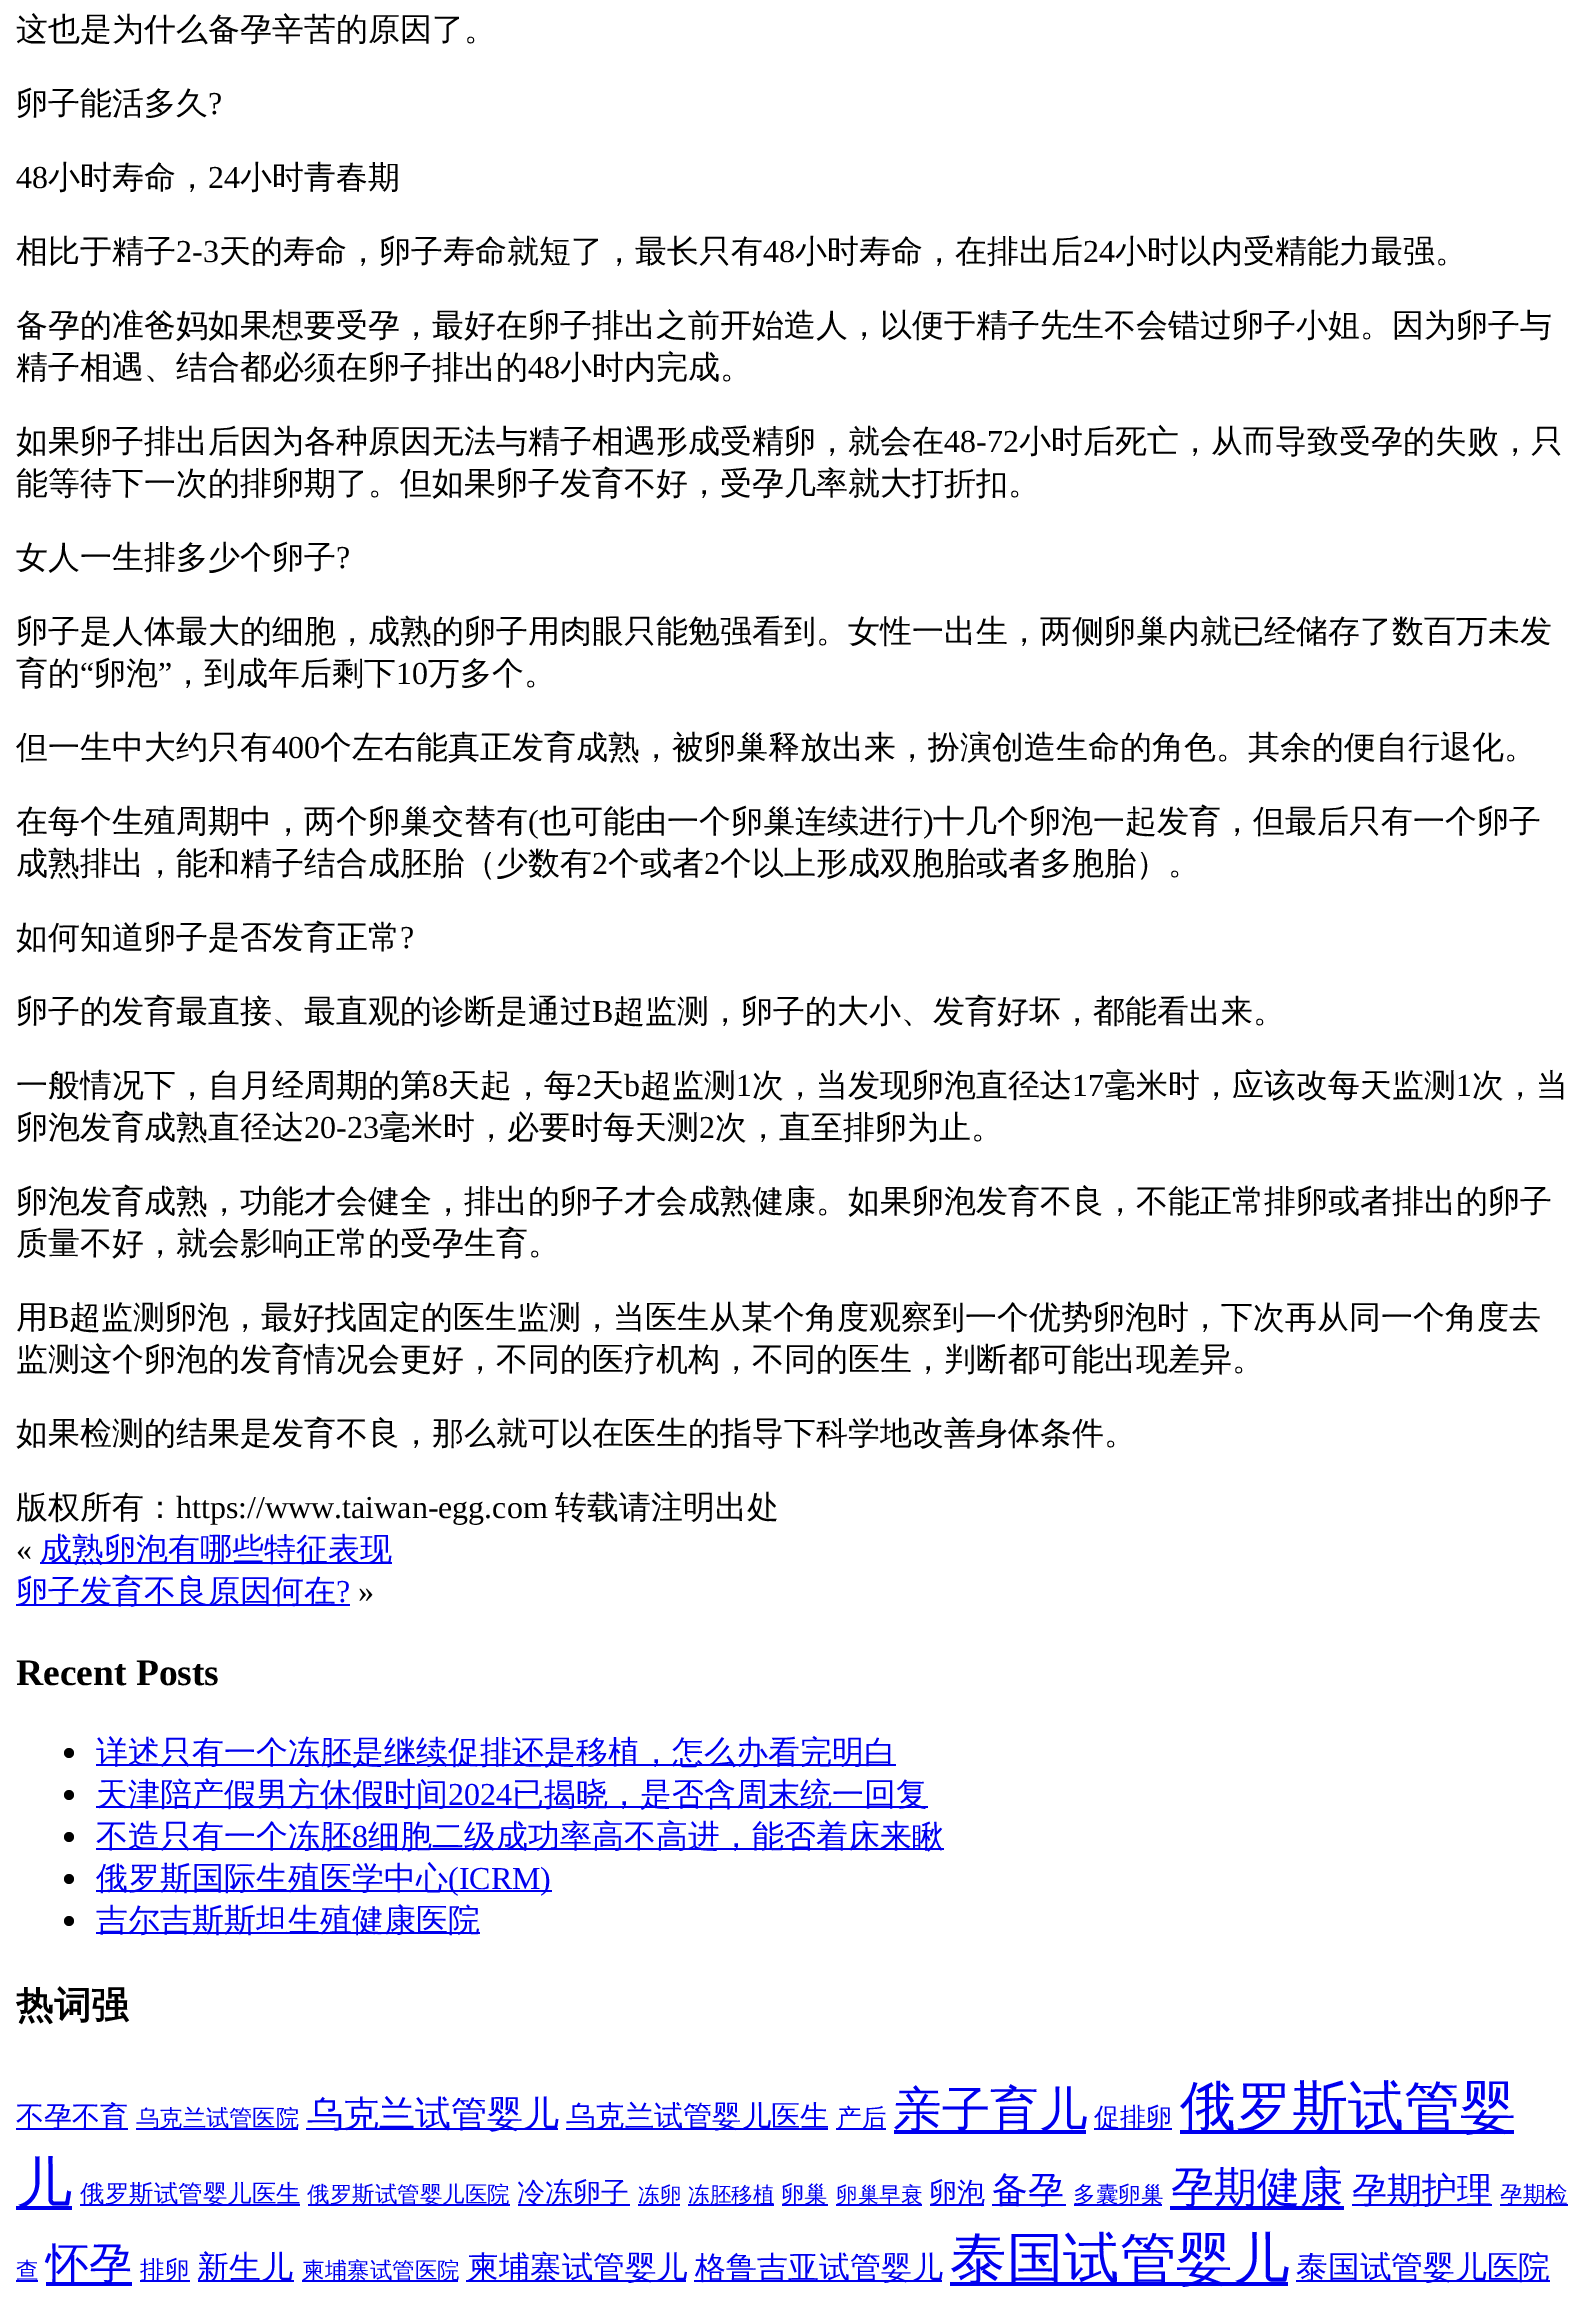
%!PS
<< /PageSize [1584 2299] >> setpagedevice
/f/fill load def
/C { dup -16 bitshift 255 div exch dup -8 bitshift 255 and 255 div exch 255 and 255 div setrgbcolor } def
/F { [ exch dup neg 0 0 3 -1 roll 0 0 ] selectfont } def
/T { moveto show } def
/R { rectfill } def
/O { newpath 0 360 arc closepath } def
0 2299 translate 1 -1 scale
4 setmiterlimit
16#FFFFFF C
0 0 1584 2299 R
/WenQuanYiZenHei-Medium 32 F
16#000000 C
(这也是为什么备孕辛苦的原因了。) 16 40 T
(卵子能活多久) 16 114 T
/LiberationSerif-Regular 32 F
(?) 208 114 T
(48) 16 188 T
/WenQuanYiZenHei-Medium 32 F
(小时寿命，) 48 188 T
/LiberationSerif-Regular 32 F
(24) 208 188 T
/WenQuanYiZenHei-Medium 32 F
(小时青春期) 240 188 T
(相比于精子) 16 262 T
/LiberationSerif-Regular 32 F
(2-3) 176 262 T
/WenQuanYiZenHei-Medium 32 F
(天的寿命，卵子寿命就短了，最长只有) 219 262 T
/LiberationSerif-Regular 32 F
(48) 763 262 T
/WenQuanYiZenHei-Medium 32 F
(小时寿命，在排出后) 795 262 T
/LiberationSerif-Regular 32 F
(24) 1083 262 T
/WenQuanYiZenHei-Medium 32 F
(小时以内受精能力最强。) 1115 262 T
(备孕的准爸妈如果想要受孕，最好在卵子排出之前开始造人，以便于精子先生不会错过卵子小姐。因为卵子与) 16 336 T
(精子相遇、结合都必须在卵子排出的) 16 378 T
/LiberationSerif-Regular 32 F
(48) 528 378 T
/WenQuanYiZenHei-Medium 32 F
(小时内完成。) 560 378 T
(如果卵子排出后因为各种原因无法与精子相遇形成受精卵，就会在) 16 452 T
/LiberationSerif-Regular 32 F
(48-72) 944 452 T
/WenQuanYiZenHei-Medium 32 F
(小时后死亡，从而导致受孕的失败，只) 1019 452 T
(能等待下一次的排卵期了。但如果卵子发育不好，受孕几率就大打折扣。) 16 494 T
(女人一生排多少个卵子) 16 568 T
/LiberationSerif-Regular 32 F
(?) 336 568 T
/WenQuanYiZenHei-Medium 32 F
(卵子是人体最大的细胞，成熟的卵子用肉眼只能勉强看到。女性一出生，两侧卵巢内就已经储存了数百万未发) 16 642 T
(育的) 16 684 T
/LiberationSerif-Regular 32 F
(“) 80 684 T
/WenQuanYiZenHei-Medium 32 F
(卵泡) 94 684 T
/LiberationSerif-Regular 32 F
(”) 158 684 T
/WenQuanYiZenHei-Medium 32 F
(，到成年后剩下) 172 684 T
/LiberationSerif-Regular 32 F
(10) 396 684 T
/WenQuanYiZenHei-Medium 32 F
(万多个。) 428 684 T
(但一生中大约只有) 16 758 T
/LiberationSerif-Regular 32 F
(400) 272 758 T
/WenQuanYiZenHei-Medium 32 F
(个左右能真正发育成熟，被卵巢释放出来，扮演创造生命的角色。其余的便自行退化。) 320 758 T
(在每个生殖周期中，两个卵巢交替有) 16 832 T
/LiberationSerif-Regular 32 F
(\() 528 832 T
/WenQuanYiZenHei-Medium 32 F
(也可能由一个卵巢连续进行) 539 832 T
/LiberationSerif-Regular 32 F
(\)) 923 832 T
/WenQuanYiZenHei-Medium 32 F
(十几个卵泡一起发育，但最后只有一个卵子) 933 832 T
(成熟排出，能和精子结合成胚胎（少数有) 16 874 T
/LiberationSerif-Regular 32 F
(2) 592 874 T
/WenQuanYiZenHei-Medium 32 F
(个或者) 608 874 T
/LiberationSerif-Regular 32 F
(2) 704 874 T
/WenQuanYiZenHei-Medium 32 F
(个以上形成双胞胎或者多胞胎）。) 720 874 T
(如何知道卵子是否发育正常) 16 948 T
/LiberationSerif-Regular 32 F
(?) 400 948 T
/WenQuanYiZenHei-Medium 32 F
(卵子的发育最直接、最直观的诊断是通过) 16 1022 T
/LiberationSerif-Regular 32 F
(B) 592 1022 T
/WenQuanYiZenHei-Medium 32 F
(超监测，卵子的大小、发育好坏，都能看出来。) 613 1022 T
(一般情况下，自月经周期的第) 16 1096 T
/LiberationSerif-Regular 32 F
(8) 432 1096 T
/WenQuanYiZenHei-Medium 32 F
(天起，每) 448 1096 T
/LiberationSerif-Regular 32 F
(2) 576 1096 T
/WenQuanYiZenHei-Medium 32 F
(天) 592 1096 T
/LiberationSerif-Regular 32 F
(b) 624 1096 T
/WenQuanYiZenHei-Medium 32 F
(超监测) 640 1096 T
/LiberationSerif-Regular 32 F
(1) 736 1096 T
/WenQuanYiZenHei-Medium 32 F
(次，当发现卵泡直径达) 752 1096 T
/LiberationSerif-Regular 32 F
(17) 1072 1096 T
/WenQuanYiZenHei-Medium 32 F
(毫米时，应该改每天监测) 1104 1096 T
/LiberationSerif-Regular 32 F
(1) 1456 1096 T
/WenQuanYiZenHei-Medium 32 F
(次，当) 1472 1096 T
(卵泡发育成熟直径达) 16 1138 T
/LiberationSerif-Regular 32 F
(20-23) 304 1138 T
/WenQuanYiZenHei-Medium 32 F
(毫米时，必要时每天测) 379 1138 T
/LiberationSerif-Regular 32 F
(2) 699 1138 T
/WenQuanYiZenHei-Medium 32 F
(次，直至排卵为止。) 715 1138 T
(卵泡发育成熟，功能才会健全，排出的卵子才会成熟健康。如果卵泡发育不良，不能正常排卵或者排出的卵子) 16 1212 T
(质量不好，就会影响正常的受孕生育。) 16 1254 T
(用) 16 1328 T
/LiberationSerif-Regular 32 F
(B) 48 1328 T
/WenQuanYiZenHei-Medium 32 F
(超监测卵泡，最好找固定的医生监测，当医生从某个角度观察到一个优势卵泡时，下次再从同一个角度去) 69 1328 T
(监测这个卵泡的发育情况会更好，不同的医疗机构，不同的医生，判断都可能出现差异。) 16 1370 T
(如果检测的结果是发育不良，那么就可以在医生的指导下科学地改善身体条件。) 16 1444 T
(版权所有：) 16 1518 T
/LiberationSerif-Regular 32 F
(https://www.taiwan-egg.com) 176 1518 T
/WenQuanYiZenHei-Medium 32 F
(转载请注明出处) 555 1518 T
/LiberationSerif-Regular 32 F
(«) 16 1560 T
16#0000EE C
40 1562 352 2 R
/WenQuanYiZenHei-Medium 32 F
(成熟卵泡有哪些特征表现) 40 1560 T
16 1604 334 2 R
(卵子发育不良原因何在) 16 1602 T
/LiberationSerif-Regular 32 F
(?) 336 1602 T
16#000000 C
(») 358 1602 T
/LiberationSerif-Bold 37.5 F
(Recent Posts) 16 1685 T
69 1753 5 O f
16#0000EE C
96 1764 800 2 R
/WenQuanYiZenHei-Medium 32 F
(详述只有一个冻胚是继续促排还是移植，怎么办看完明白) 96 1763 T
16#000000 C
69 1795 5 O f
16#0000EE C
96 1806 832 2 R
(天津陪产假男方休假时间) 96 1805 T
/LiberationSerif-Regular 32 F
(2024) 448 1805 T
/WenQuanYiZenHei-Medium 32 F
(已揭晓，是否含周末统一回复) 512 1805 T
16#000000 C
69 1837 5 O f
16#0000EE C
96 1848 848 2 R
(不造只有一个冻胚) 96 1847 T
/LiberationSerif-Regular 32 F
(8) 352 1847 T
/WenQuanYiZenHei-Medium 32 F
(细胞二级成功率高不高进，能否着床来瞅) 368 1847 T
16#000000 C
69 1879 5 O f
16#0000EE C
96 1890 456 2 R
(俄罗斯国际生殖医学中心) 96 1889 T
/LiberationSerif-Regular 32 F
(\(ICRM\)) 448 1889 T
16#000000 C
69 1921 5 O f
16#0000EE C
96 1932 384 2 R
/WenQuanYiZenHei-Medium 32 F
(吉尔吉斯斯坦生殖健康医院) 96 1931 T
/WenQuanYiZenHei-Bold 37.5 F
16#000000 C
(热词强) 16 2018 T
16#0000EE C
16 2128 112 2 R
/WenQuanYiZenHei-Medium 28 F
(不孕不育) 16 2126 T
136 2128 162 2 R
/WenQuanYiZenHei-Medium 23.25 F
(乌克兰试管医院) 136 2126 T
306 2128 252 2 R
/WenQuanYiZenHei-Medium 36 F
(乌克兰试管婴儿) 307 2126 T
566 2128 262 2 R
/WenQuanYiZenHei-Medium 29.25 F
(乌克兰试管婴儿医生) 566 2126 T
836 2128 50 2 R
/WenQuanYiZenHei-Medium 24.5 F
(产后) 837 2126 T
894 2130 192 4 R
/WenQuanYiZenHei-Medium 48.5 F
(亲子育儿) 893 2126 T
1094 2128 78 2 R
/WenQuanYiZenHei-Medium 26 F
(促排卵) 1094 2126 T
1180 2130 334 4 R
/WenQuanYiZenHei-Medium 56 F
(俄罗斯试管婴) 1180 2126 T
16 2206 56 4 R
(儿) 16 2202 T
80 2204 220 2 R
/WenQuanYiZenHei-Medium 24.5 F
(俄罗斯试管婴儿医生) 80 2202 T
308 2204 202 2 R
/WenQuanYiZenHei-Medium 22.5 F
(俄罗斯试管婴儿医院) 307 2202 T
518 2204 112 2 R
/WenQuanYiZenHei-Medium 28 F
(冷冻卵子) 517 2202 T
638 2204 42 2 R
/WenQuanYiZenHei-Medium 21.5 F
(冻卵) 638 2202 T
688 2204 86 2 R
(冻胚移植) 688 2202 T
782 2204 46 2 R
/WenQuanYiZenHei-Medium 23.25 F
(卵巢) 781 2202 T
836 2204 86 2 R
/WenQuanYiZenHei-Medium 21.5 F
(卵巢早衰) 836 2202 T
930 2204 54 2 R
/WenQuanYiZenHei-Medium 28 F
(卵泡) 929 2202 T
992 2204 74 2 R
/WenQuanYiZenHei-Medium 36 F
(备孕) 992 2202 T
1074 2204 88 2 R
/WenQuanYiZenHei-Medium 22.5 F
(多囊卵巢) 1073 2202 T
1170 2206 174 4 R
/WenQuanYiZenHei-Medium 43 F
(孕期健康) 1171 2202 T
1352 2204 140 2 R
/WenQuanYiZenHei-Medium 35 F
(孕期护理) 1352 2202 T
1500 2204 68 2 R
/WenQuanYiZenHei-Medium 22.5 F
(孕期检) 1500 2202 T
(查) 16 2278 T
16 2280 22 2 R
46 2282 86 4 R
/WenQuanYiZenHei-Medium 43 F
(怀孕) 46 2278 T
140 2280 50 2 R
/WenQuanYiZenHei-Medium 24.5 F
(排卵) 140 2278 T
198 2280 96 2 R
/WenQuanYiZenHei-Medium 32 F
(新生儿) 197 2278 T
302 2280 156 2 R
/WenQuanYiZenHei-Medium 22.5 F
(柬埔寨试管医院) 302 2278 T
466 2280 220 2 R
/WenQuanYiZenHei-Medium 31.5 F
(柬埔寨试管婴儿) 467 2278 T
694 2280 248 2 R
/WenQuanYiZenHei-Medium 31 F
(格鲁吉亚试管婴儿) 695 2278 T
950 2282 338 4 R
/WenQuanYiZenHei-Medium 56.5 F
(泰国试管婴儿) 950 2278 T
1296 2280 254 2 R
/WenQuanYiZenHei-Medium 31.75 F
(泰国试管婴儿医院) 1296 2278 T
showpage
